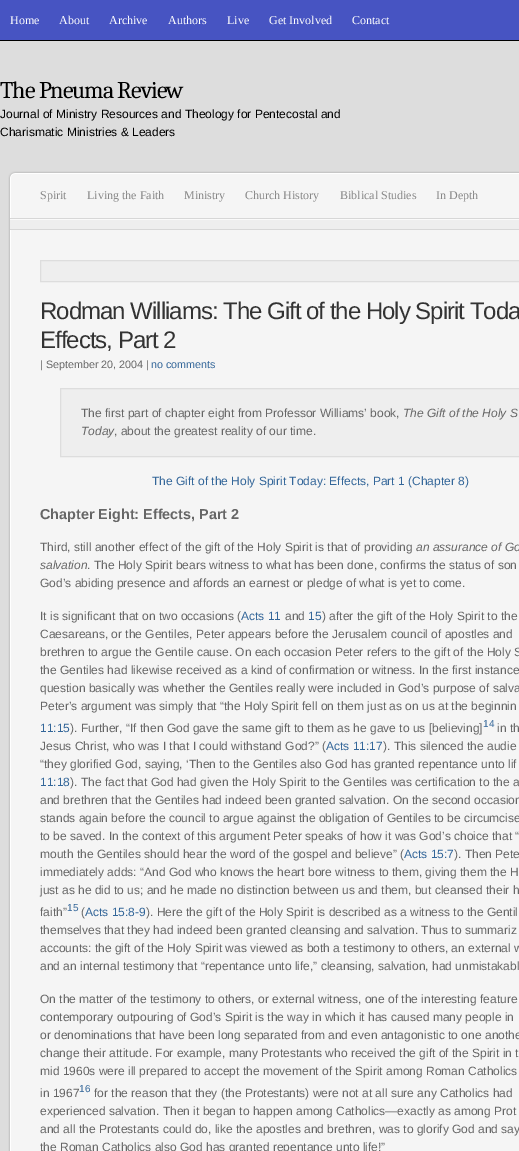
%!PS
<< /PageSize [519 1151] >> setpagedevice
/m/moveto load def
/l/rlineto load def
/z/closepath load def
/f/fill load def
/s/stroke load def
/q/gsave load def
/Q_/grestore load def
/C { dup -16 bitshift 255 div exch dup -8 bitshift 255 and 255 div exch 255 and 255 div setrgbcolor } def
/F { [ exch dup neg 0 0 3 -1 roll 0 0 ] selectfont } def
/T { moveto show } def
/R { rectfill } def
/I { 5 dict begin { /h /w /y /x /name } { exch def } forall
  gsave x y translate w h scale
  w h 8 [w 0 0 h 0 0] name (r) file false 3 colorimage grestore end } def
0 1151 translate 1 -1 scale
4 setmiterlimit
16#DDDDDD C
0 0 519 1151 R
16#4754C2 C
0 0 519 40 R
16#000000 C
0 40 519 1 R
/LiberationSerif-Regular 12 F
16#FFFFFF C
(Home) 10 24 T
(About) 59 24 T
(Archive) 109 24 T
(Authors) 168 24 T
(Live) 227 24 T
(Get Involved) 269 24 T
(Contact) 352 24 T
/Caladea-Regular 24 F
16#000000 C
0 98 m -1 0 (The Pneuma Review) ashow
/LiberationSans-Regular 12 F
(Journal of Ministry Resources and Theology for Pentecostal and) 0 118 T
(Charismatic Ministries & Leaders) 0 136 T
(1.rgb) 8 171 511 47 I
/LiberationSerif-Regular 12 F
16#888888 C
(Spirit) 40 199 T
(Living the Faith) 87 199 T
(Ministry) 184 199 T
(Church History) 245 199 T
(Biblical Studies) 340 199 T
(In Depth) 436 199 T
(2.rgb) 8 218 511 42 I
(3.rgb) 8 260 511 891 I
16#EEEEEE C
40.5 260.5 m 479 0 l 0 21 l -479 0 l z q f Q_
16#DDDDDD C
s
/LiberationSans-Regular 24 F
16#333333 C
40 319 m -1 0 (Rodman Williams: The Gift of the Holy Spirit Toda) ashow
40 348 m -1 0 (Effects, Part 2) ashow
/LiberationSans-Regular 10.75 F
16#666666 C
(| September 20, 2004 |) 40 368 T
16#336699 C
(no comments) 151 368 T
16#EEEEEE C
60.5 388.5 m 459 0 l 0 68 l -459 0 l z q f Q_
16#DDDDDD C
s
/LiberationSans-Regular 12 F
16#666666 C
(The first part of chapter eight from Professor Williams’ book,) 81 417 T
/LiberationSans-Italic 12 F
(The Gift of the Holy S) 403 417 T
(Today) 81 435 T
/LiberationSans-Regular 12 F
(, about the greatest reality of our time.) 114 435 T
16#336699 C
(The Gift of the Holy Spirit Today: Effects, Part 1 \(Chapter 8\)) 152 485 T
/LiberationSans-Bold 14.4 F
16#666666 C
(Chapter Eight: Effects, Part 2) 40 519 T
/LiberationSans-Regular 12 F
(Third, still another effect of the gift of the Holy Spirit is that of providing) 40 551 T
/LiberationSans-Italic 12 F
(an assurance of Go) 416 551 T
(salvation) 40 569 T
/LiberationSans-Regular 12 F
(. The Holy Spirit bears witness to what has been done, confirms the status of son) 87 569 T
(God’s abiding presence and affords an earnest or pledge of what is yet to come.) 40 587 T
(It is significant that on two occasions \() 40 620 T
16#336699 C
(Acts 11) 241 620 T
16#666666 C
(and) 285 620 T
16#336699 C
(15) 308 620 T
16#666666 C
(\) after the gift of the Holy Spirit to the) 322 620 T
(Caesareans, or the Gentiles, Peter appears before the Jerusalem council of apostles and) 40 638 T
(brethren to argue the Gentile cause. On each occasion Peter refers to the gift of the Holy S) 40 656 T
(the Gentiles had likewise received as a kind of confirmation or witness. In the first instance) 40 674 T
(question basically was whether the Gentiles really were included in God’s purpose of salva) 40 692 T
(Peter’s argument was simply that “the Holy Spirit fell on them just as on us at the beginnin) 40 710 T
16#336699 C
(11:15) 40 732 T
16#666666 C
(\). Further, “If then God gave the same gift to them as he gave to us [believing]) 70 732 T
/LiberationSans-Regular 10 F
16#336699 C
(14) 483 727 T
/LiberationSans-Regular 12 F
16#666666 C
(in th) 497 732 T
(Jesus Christ, who was I that I could withstand God?” \() 40 750 T
16#336699 C
(Acts 11:17) 326 750 T
16#666666 C
(\). This silenced the audie) 383 750 T
(“they glorified God, saying, ‘Then to the Gentiles also God has granted repentance unto lif) 40 768 T
16#336699 C
(11:18) 40 786 T
16#666666 C
(\). The fact that God had given the Holy Spirit to the Gentiles was certification to the a) 70 786 T
(and brethren that the Gentiles had indeed been granted salvation. On the second occasion) 40 804 T
(stands again before the council to argue against the obligation of Gentiles to be circumcise) 40 822 T
(to be saved. In the context of this argument Peter speaks of how it was God’s choice that “) 40 840 T
(mouth the Gentiles should hear the word of the gospel and believe” \() 40 858 T
16#336699 C
(Acts 15:7) 404 858 T
16#666666 C
(\). Then Pete) 454 858 T
(immediately adds: “And God who knows the heart bore witness to them, giving them the H) 40 876 T
(just as he did to us; and he made no distinction between us and them, but cleansed their h) 40 894 T
(faith”) 40 916 T
/LiberationSans-Regular 10 F
16#336699 C
(15) 67 911 T
/LiberationSans-Regular 12 F
16#666666 C
(\() 81 916 T
16#336699 C
(Acts 15:8-9) 85 916 T
16#666666 C
(\). Here the gift of the Holy Spirit is described as a witness to the Gentil) 146 916 T
(themselves that they had indeed been granted cleansing and salvation. Thus to summariz) 40 934 T
(accounts: the gift of the Holy Spirit was viewed as both a testimony to others, an external w) 40 952 T
(and an internal testimony that “repentance unto life,” cleansing, salvation, had unmistakabl) 40 970 T
(On the matter of the testimony to others, or external witness, one of the interesting feature) 40 1003 T
(contemporary outpouring of God’s Spirit is the way in which it has caused many people in) 40 1021 T
(or denominations that have been long separated from and even antagonistic to one anothe) 40 1039 T
(change their attitude. For example, many Protestants who received the gift of the Spirit in t) 40 1057 T
(mid 1960s were ill prepared to accept the movement of the Spirit among Roman Catholics) 40 1075 T
(in 1967) 40 1097 T
/LiberationSans-Regular 10 F
16#336699 C
(16) 79 1092 T
/LiberationSans-Regular 12 F
16#666666 C
(for the reason that they \(the Protestants\) were not at all sure any Catholics had) 94 1097 T
(experienced salvation. Then it began to happen among Catholics—exactly as among Prot) 40 1115 T
(and all the Protestants could do, like the apostles and brethren, was to glorify God and say) 40 1133 T
(the Roman Catholics also God has granted repentance unto life!”) 40 1151 T
showpage
